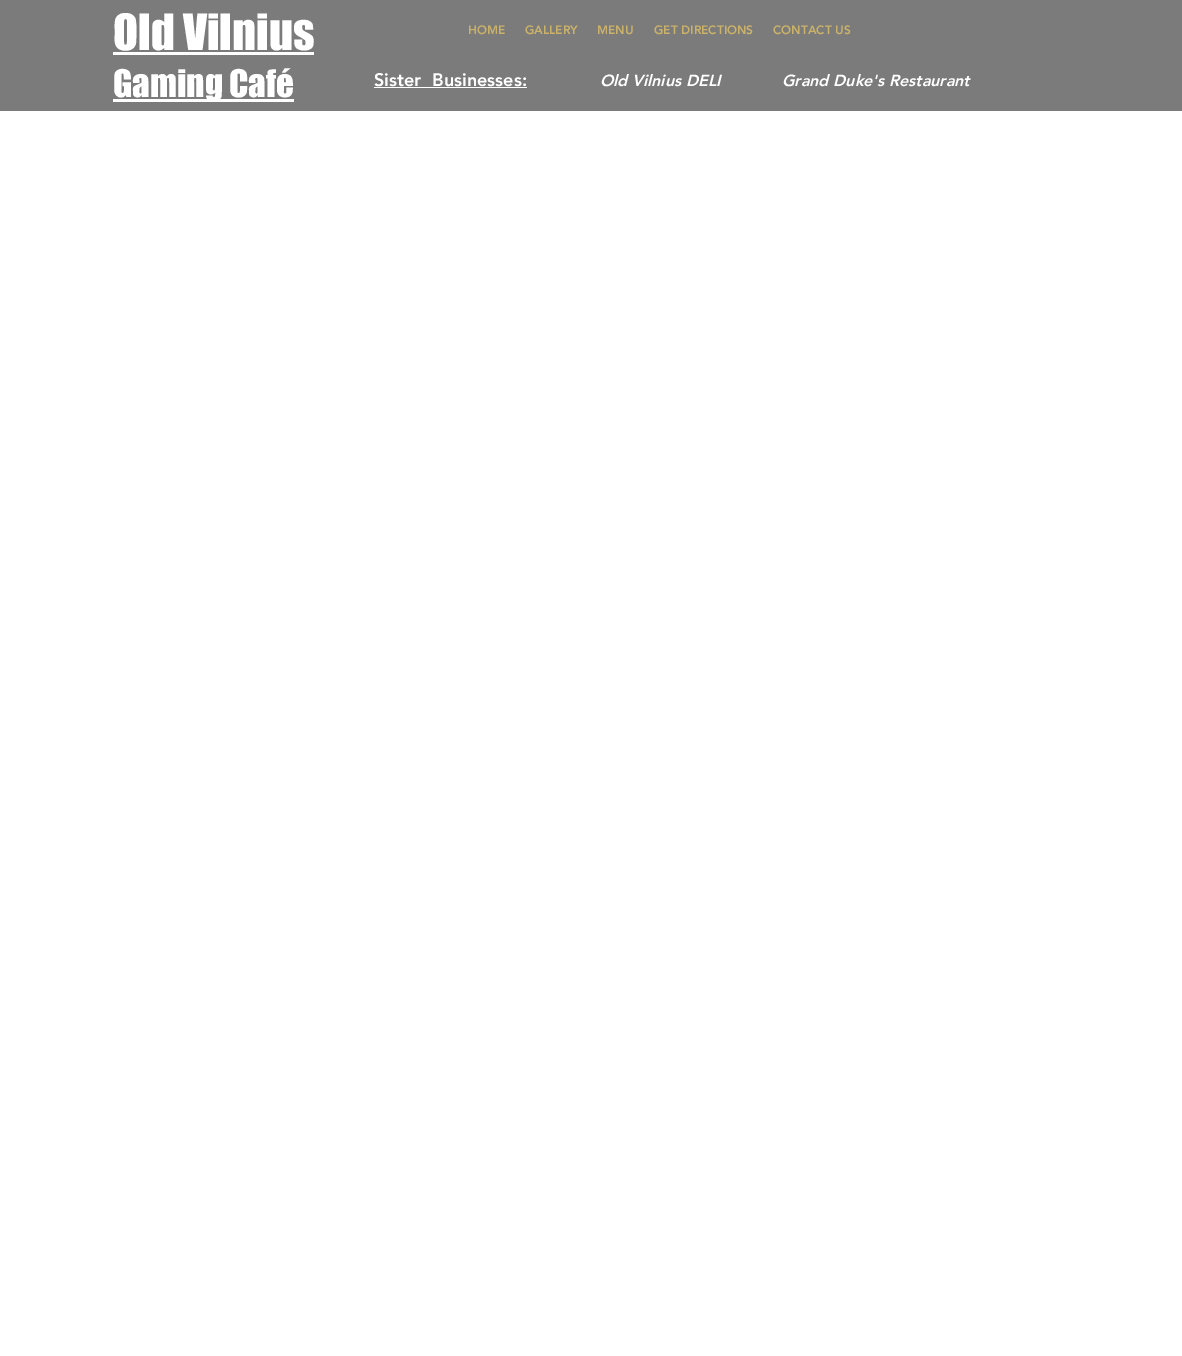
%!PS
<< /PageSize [1182 1356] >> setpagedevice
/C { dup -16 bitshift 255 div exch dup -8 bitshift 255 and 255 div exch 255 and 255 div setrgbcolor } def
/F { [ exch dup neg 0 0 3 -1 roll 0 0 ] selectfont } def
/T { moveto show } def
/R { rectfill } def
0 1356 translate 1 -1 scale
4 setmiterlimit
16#FFFFFF C
0 0 1182 1356 R
16#7B7B7B C
0 0 1182 111 R
/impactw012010-Regular 46 F
16#FFFFFF C
(Old Vilnius) 113 50 T
113 52 201 3 R
113 99 181 3 R
/impactw012010-Regular 35 F
(Gaming Café) 113 97 T
/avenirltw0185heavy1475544-Black 12 F
16#CBB26A C
(HOME) 468 34 T
(GALLERY) 525 34 T
(MENU) 597 34 T
(GET DIRECTIONS) 654 34 T
(CONTACT US) 773 34 T
/avenirltw0185heavy1475544-Black 18 F
16#FFFFFF C
(Sister  Businesses:) 374 86 T
374 87 153 1 R
/avenirltw0185heavy1475544-BlackItalic 16 F
(Old Vilnius DELI) 600 86 T
(Grand Duke's Restaurant) 782 86 T
showpage
